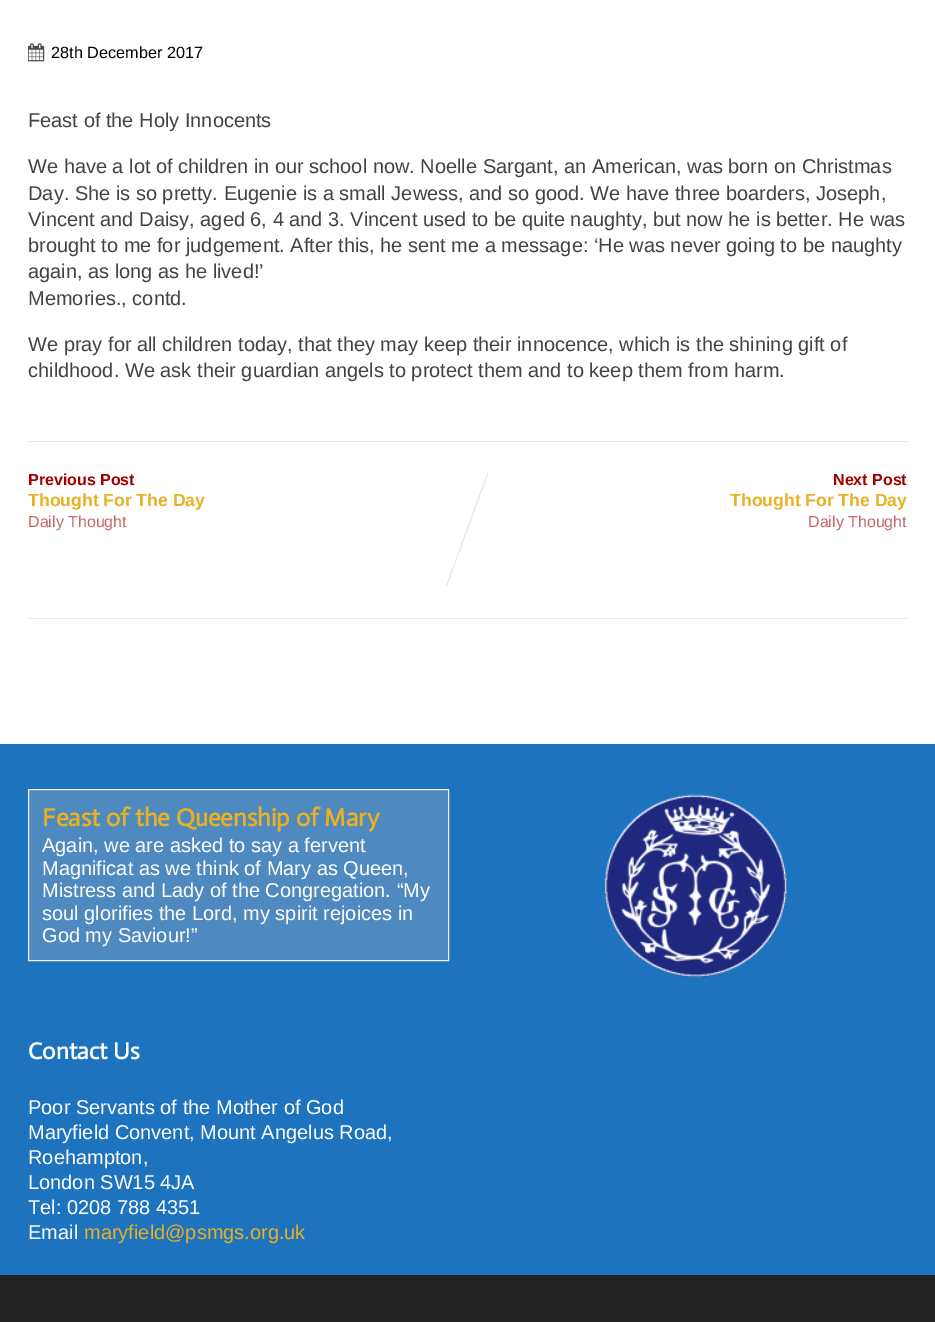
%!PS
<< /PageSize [935 1322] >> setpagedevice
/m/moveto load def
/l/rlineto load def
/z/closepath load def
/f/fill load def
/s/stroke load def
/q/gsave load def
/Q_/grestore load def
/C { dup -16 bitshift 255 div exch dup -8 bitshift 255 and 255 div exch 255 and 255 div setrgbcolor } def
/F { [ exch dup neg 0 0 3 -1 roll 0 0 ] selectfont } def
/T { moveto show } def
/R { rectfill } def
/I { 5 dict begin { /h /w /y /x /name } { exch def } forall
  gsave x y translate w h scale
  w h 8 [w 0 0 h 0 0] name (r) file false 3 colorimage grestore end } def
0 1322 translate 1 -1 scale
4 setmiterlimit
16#FFFFFF C
0 0 935 1322 R
(1.rgb) 28 43 17 19 I
/LiberationSans-Regular 16.25 F
16#000000 C
(28th December 2017) 51 58 T
/LiberationSans-Regular 20 F
16#434440 C
(Feast of the Holy Innocents) 28 127 T
(We have a lot of children in our school now. Noelle Sargant, an American, was born on Christmas) 28 173 T
(Day. She is so pretty. Eugenie is a small Jewess, and so good. We have three boarders, Joseph,) 28 200 T
(Vincent and Daisy, aged 6, 4 and 3. Vincent used to be quite naughty, but now he is better. He was) 28 226 T
(brought to me for judgement. After this, he sent me a message: ‘He was never going to be naughty) 28 252 T
(again, as long as he lived!’) 28 278 T
(Memories., contd.) 28 305 T
(We pray for all children today, that they may keep their innocence, which is the shining gift of) 28 351 T
(childhood. We ask their guardian angels to protect them and to keep them from harm.) 28 377 T
16#E6E6E6 C
28 441 880 1 R
16#EBEBEB C
28 618 880 1 R
/LiberationSans-Bold 16 F
16#9F0000 C
(Previous Post) 28 485 T
/LiberationSans-Bold 17.6 F
16#E8B022 C
(Thought For The Day) 28 506 T
/LiberationSans-Regular 16 F
16#C56666 C
(Daily Thought) 28 527 T
16#E6E6E6 C
488 471 m 1 0 l -42 115 l -1 0 l z f
/LiberationSans-Bold 16 F
16#9F0000 C
(Next Post) 833 485 T
/LiberationSans-Bold 17.6 F
16#E8B022 C
(Thought For The Day) 730 506 T
/LiberationSans-Regular 16 F
16#C56666 C
(Daily Thought) 808 527 T
16#1E73BE C
0 744 935 531 R
16#4E8ABF C
28.5 789.5 m 420 0 l 0 171 l -420 0 l z q f Q_
16#EEEEEE C
s
/Actor-Bold 25 F
16#E8B022 C
(Feast of the Queenship of Mary) 42 826 T
/LiberationSans-Regular 20 F
16#FFFFFF C
(Again, we are asked to say a fervent) 42 852 T
(Magnificat as we think of Mary as Queen,) 42 875 T
(Mistress and Lady of the Congregation. “My) 42 897 T
(soul glorifies the Lord, my spirit rejoices in) 42 920 T
(God my Saviour!”) 42 942 T
(2.rgb) 604 794 186 184 I
/Actor-Bold 23.5 F
(Contact Us) 28 1059 T
/LiberationSans-Regular 20 F
(Poor Servants of the Mother of God) 28 1114 T
(Maryfield Convent, Mount Angelus Road,) 28 1139 T
(Roehampton,) 28 1164 T
(London SW15 4JA) 28 1189 T
(Tel: 0208 788 4351) 28 1214 T
(Email) 28 1239 T
16#E8B022 C
(maryfield@psmgs.org.uk) 84 1239 T
16#232323 C
0 1275 935 47 R
showpage
